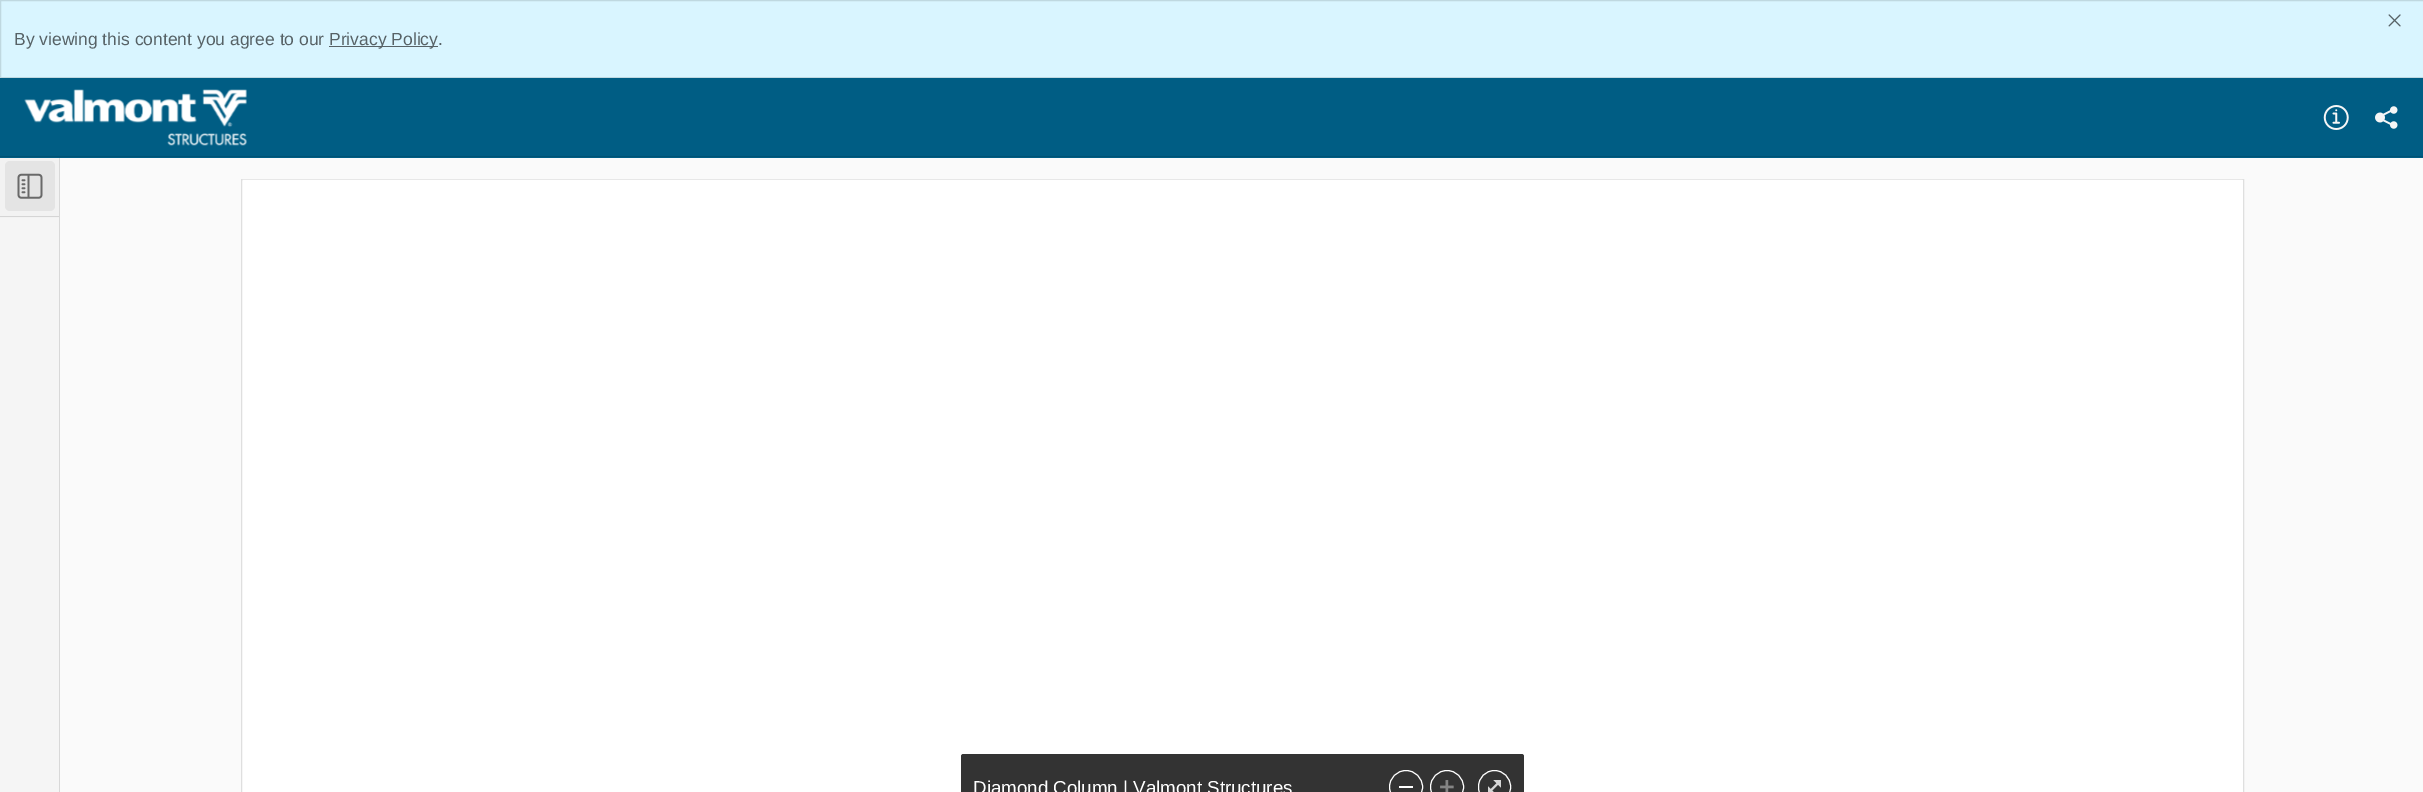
%!PS
<< /PageSize [2423 792] >> setpagedevice
/m/moveto load def
/l/rlineto load def
/z/closepath load def
/f/fill load def
/s/stroke load def
/q/gsave load def
/Q_/grestore load def
/C { dup -16 bitshift 255 div exch dup -8 bitshift 255 and 255 div exch 255 and 255 div setrgbcolor } def
/F { [ exch dup neg 0 0 3 -1 roll 0 0 ] selectfont } def
/T { moveto show } def
/R { rectfill } def
/O { newpath 0 360 arc closepath } def
/Q { 5 dict begin { /r /h /w /y /x } { exch def } forall
  x r add y moveto x w add y 2 copy h add r arct x w add y h add x 1 index r arct
  x y h add x y r arct x y 2 copy exch w add exch r arct closepath end } def
/I { 5 dict begin { /h /w /y /x /name } { exch def } forall
  gsave x y translate w h scale
  w h 8 [w 0 0 h 0 0] name (r) file false 3 colorimage grestore end } def
0 792 translate 1 -1 scale
4 setmiterlimit
16#FAFAFA C
0 0 2423 792 R
16#D9F5FF C
.5 .5 m 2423 0 l 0 77 l -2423 0 l z q f Q_
16#BFD8E0 C
s
(1.rgb) 2388 14 13 13 I
/LiberationSans-Regular 17.5 F
16#576266 C
(By viewing this content you agree to our) 14 45 T
329 46 109 1 R
(Privacy Policy) 329 45 T
(.) 438 45 T
16#005D84 C
0 78 2423 80 R
16#005274 C
0 156 2423 1 R
(2.rgb) 24 89 223 57 I
(3.rgb) 2323 105 26 25 I
(4.rgb) 2375 106 23 23 I
16#F5F5F5 C
0 218 59 574 R
16#D8D8D8 C
59 158 1 634 R
16#F2F2F2 C
0 158 59 60 R
16#D5D5D5 C
0 216 59 1 R
16#E4E4E4 C
5 161 50 50 5 Q f
(5.rgb) 17 173 26 26 I
16#FFFFFF C
242 180 1 612 R
16#DFDFDF C
241.5 179.5 2002 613 rectstroke
16#FFFFFF C
243 180 2000 612 R
(6.rgb) 242 179 2001 1 I
16#333333 C
961 754 563 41 2.5 Q f
/LiberationSans-Regular 18.75 F
16#FFFFFF C
(Diamond Column | Valmont Structures) 973 794 T
1406 787 16.5 O s
1399 786 14 2 R
1447 787 16.5 O s
(7.rgb) 1440 780 14 12 I
1478.5 770.5 32 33 16 Q s
(8.rgb) 1488 780 13 12 I
showpage
